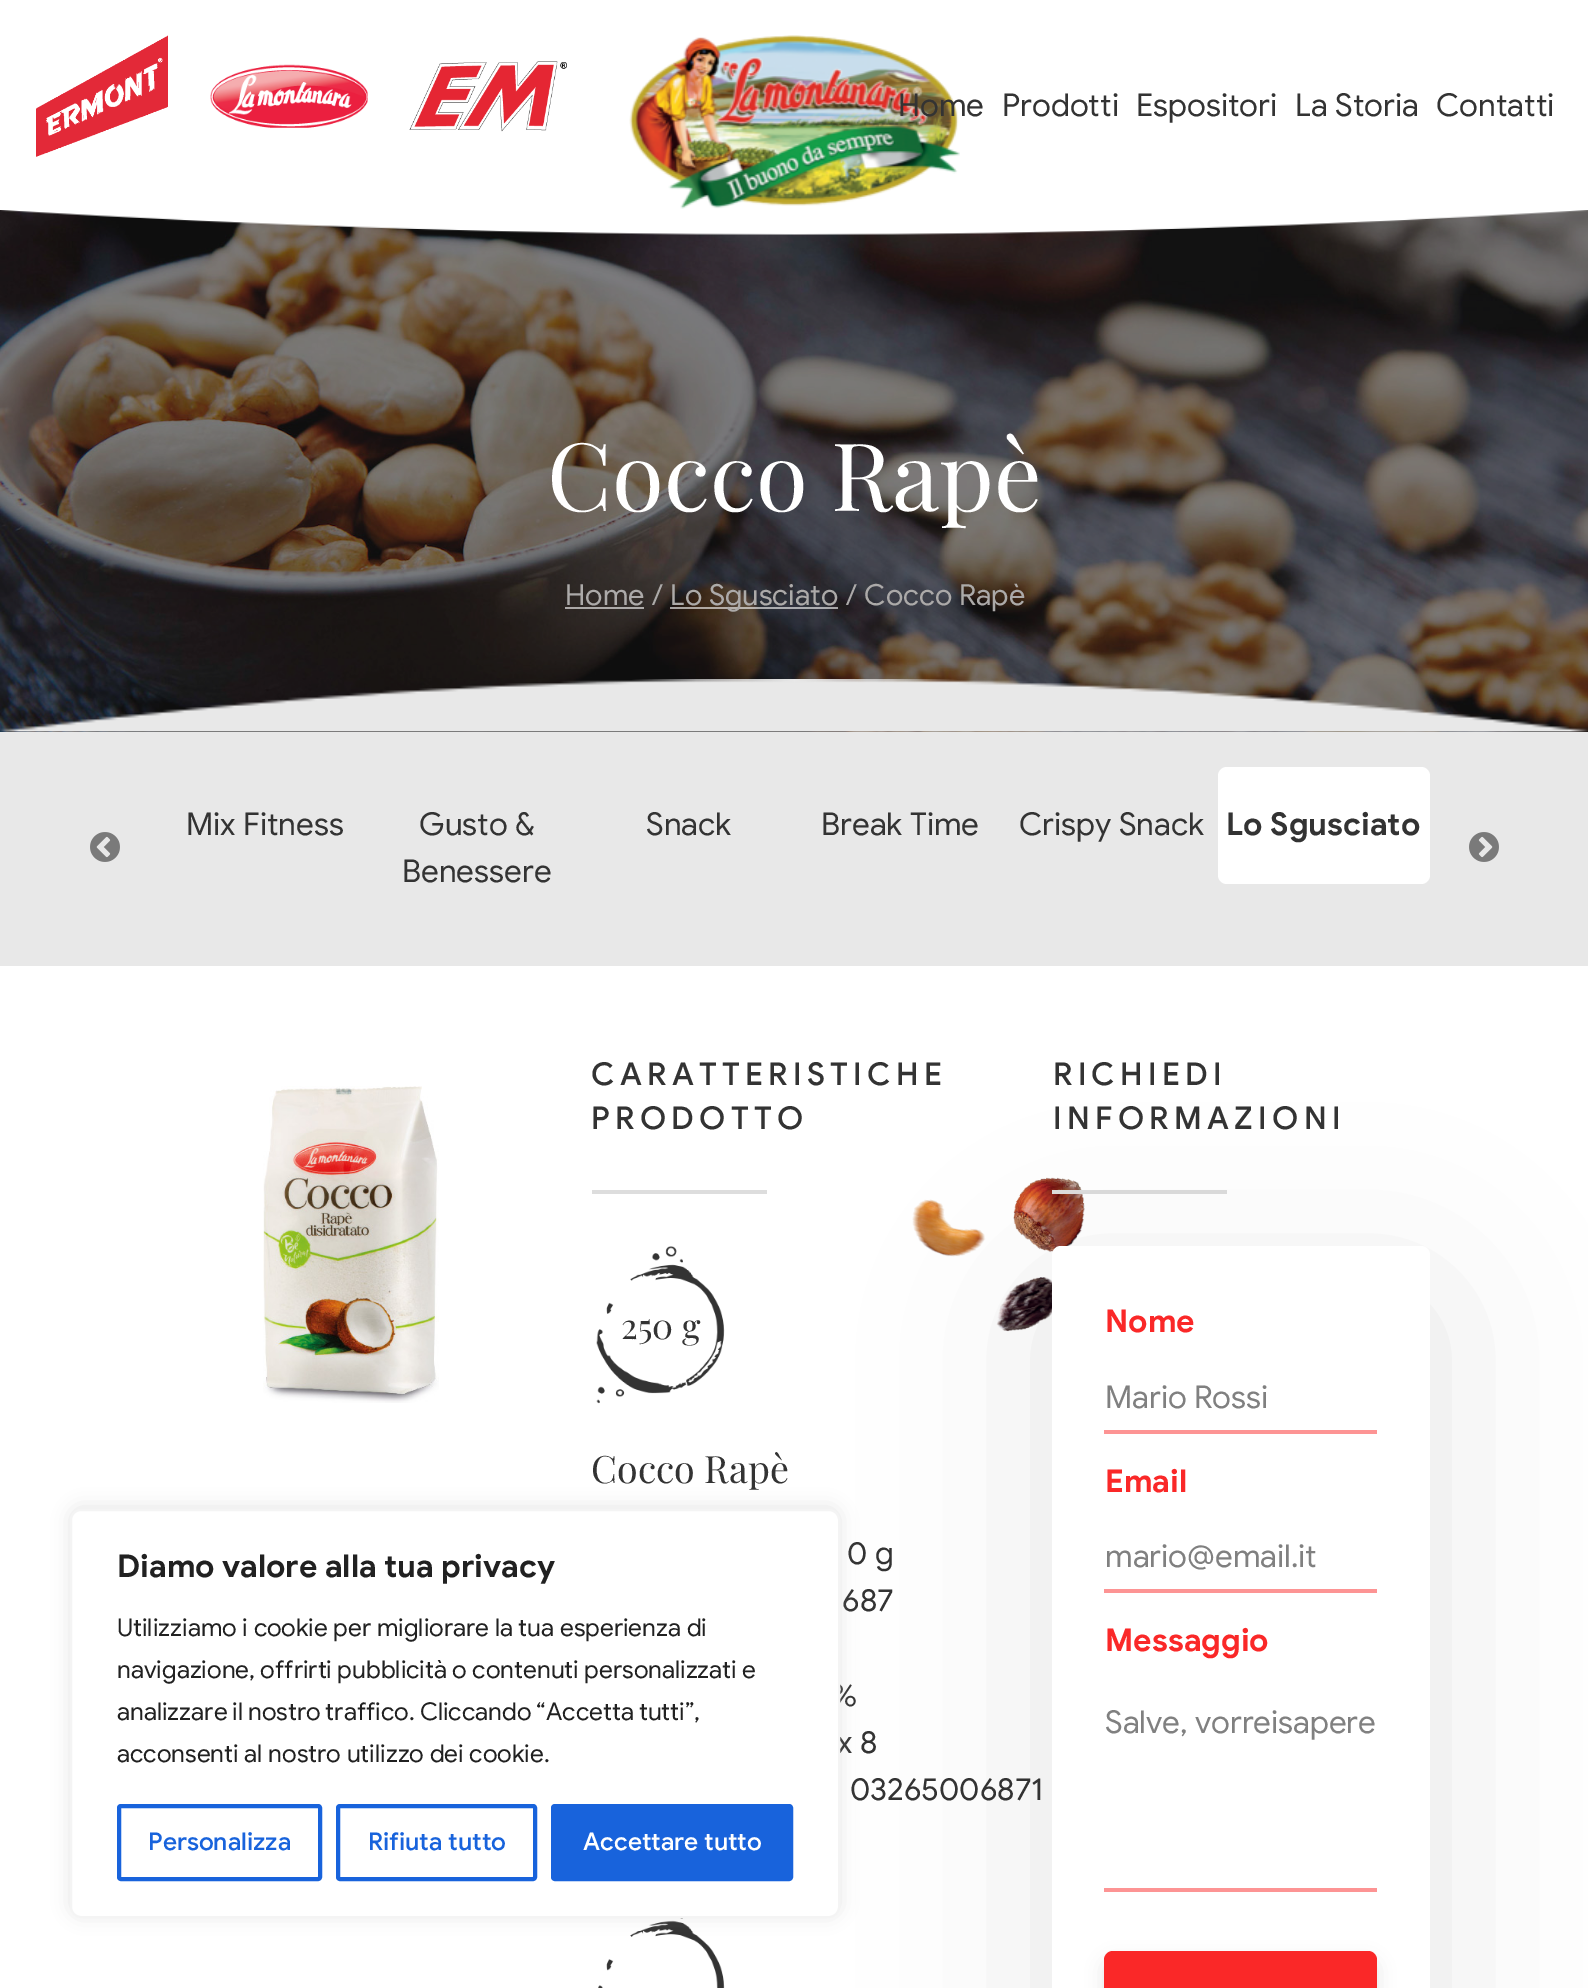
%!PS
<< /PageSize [1588 1988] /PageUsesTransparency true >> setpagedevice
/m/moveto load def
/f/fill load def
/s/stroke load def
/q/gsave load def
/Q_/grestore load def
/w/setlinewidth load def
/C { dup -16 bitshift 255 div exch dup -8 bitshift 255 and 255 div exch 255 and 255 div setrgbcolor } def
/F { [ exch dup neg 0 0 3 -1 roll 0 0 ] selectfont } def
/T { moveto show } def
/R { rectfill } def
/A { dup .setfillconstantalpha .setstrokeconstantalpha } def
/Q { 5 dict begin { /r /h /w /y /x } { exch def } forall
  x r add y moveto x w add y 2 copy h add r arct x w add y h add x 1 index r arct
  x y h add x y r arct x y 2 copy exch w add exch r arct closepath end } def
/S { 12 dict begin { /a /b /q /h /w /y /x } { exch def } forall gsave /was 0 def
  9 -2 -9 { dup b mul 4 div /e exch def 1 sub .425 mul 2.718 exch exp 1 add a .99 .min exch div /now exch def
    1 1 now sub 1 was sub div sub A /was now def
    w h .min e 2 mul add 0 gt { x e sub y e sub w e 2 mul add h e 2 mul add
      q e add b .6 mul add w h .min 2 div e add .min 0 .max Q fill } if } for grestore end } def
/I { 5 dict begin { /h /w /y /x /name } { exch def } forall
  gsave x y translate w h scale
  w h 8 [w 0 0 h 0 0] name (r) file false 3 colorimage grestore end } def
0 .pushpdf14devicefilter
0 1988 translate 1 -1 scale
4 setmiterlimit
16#FFFFFF C
0 0 1588 1988 R
(1.rgb) 36 35 132 122 I
(2.rgb) 210 64 158 64 I
(3.rgb) 409 61 158 71 I
(4.rgb) 629 35 331 174 I
/GoogleSans-Regular 31.5 F
16#333333 C
(Home) 898 116 T
(Prodotti) 1002 116 T
(Espositori) 1136 116 T
(La Storia) 1295 116 T
(Contatti) 1436 116 T
(6.rgb) 0 210 1588 522 I
(5.rgb) 0 210 1588 25 I
/PlayfairDisplay-Regular 94.5 F
16#FFFFFF C
(Cocco Rapè) 547 511 T
/GoogleSans-Regular 29 F
16#ACAAA9 C
(Home) 565 605 T
0.6 A
16#FFFFFF C
565 607 79 2 R
1 A
16#ACAAA9 C
(/) 651 605 T
0.6 A
16#FFFFFF C
670 607 168 2 R
1 A
16#ACAAA9 C
(Lo Sgusciato) 670 605 T
(/ Cocco Rapè) 845 605 T
16#E8E8E8 C
0 732 1588 234 R
(7.rgb) 0 679 1588 53 I
(8.rgb) 90 832 30 30 I
/GoogleSans-Regular 31.5 F
16#333333 C
(Mix Fitness) 186 835 T
(Gusto &) 419 835 T
(Benessere) 402 882 T
(Snack) 646 835 T
(Break Time) 821 835 T
(Crispy Snack) 1019 835 T
16#FFFFFF C
1218 767 212 117 9 Q f
/GoogleSans-Bold 31.5 F
16#333333 C
(Lo Sgusciato) 1226 835 T
(9.rgb) 1469 832 30 30 I
(10.rgb) 263 1086 176 317 I
/GoogleSans-Medium 31.5 F
591 1085 m 5.25 0 (CARATTERISTICHE) ashow
591 1129 m 5.25 0 (PRODOTTO) ashow
16#DDDDDD C
592 1190 175 4 R
(11.rgb) 596 1246 129 158 I
/PlayfairDisplay-Regular 35 F
16#333333 C
(250 g) 621 1339 T
/PlayfairDisplay-Regular 37.75 F
(Cocco Rapè) 591 1483 T
/GoogleSans-Regular 31.5 F
(0 g) 847 1564 T
(687) 842 1611 T
(%) 831 1706 T
(x 8) 837 1753 T
(03265006871) 850 1800 T
(12.rgb) 598 1918 127 70 I
/GoogleSans-Medium 31.5 F
1053 1085 m 5.25 0 (RICHIEDI) ashow
1053 1129 m 5.25 0 (INFORMAZIONI) ashow
(13.rgb) 912 1177 173 155 I
16#DDDDDD C
1052 1190 175 4 R
16#000000 C
1052 1299 378 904 9 87.5 .1 S
16#FFFFFF C
1052 1246 378 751 9 Q f
/GoogleSans-Bold 31.5 F
16#FA2828 C
(Nome) 1105 1332 T
16#FD9494 C
1104 1430 273 4 R
/GoogleSans-Regular 31.5 F
16#808080 C
(Mario Rossi) 1105 1408 T
/GoogleSans-Bold 31.5 F
16#FA2828 C
(Email) 1105 1492 T
16#FD9494 C
1104 1589 273 4 R
/GoogleSans-Regular 31.5 F
16#808080 C
(mario@email.it) 1105 1567 T
/GoogleSans-Bold 31.5 F
16#FA2828 C
(Messaggio) 1105 1651 T
16#FD9494 C
1104 1888 273 4 R
/GoogleSans-Regular 31.5 F
16#808080 C
(Salve, vorreisapere) 1105 1733 T
16#000000 C
1104 1960 273 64 9 9 .1 S
16#FA2828 C
1104 1951 273 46 9 Q f
16#ACABAB C
70 1507 770 409 11 9 .3 S
16#FFFFFF C
71 1510 768 407 10 Q q f Q_
16#F4F4F4 C
2 w
s
/GoogleSans-Bold 31.5 F
16#212121 C
(Diamo valore alla tua privacy) 117 1577 T
/GoogleSans-Regular 24.5 F
(Utilizziamo i cookie per migliorare la tua esperienza di) 117 1636 T
117 1678 m -.25 0 32 (navigazione, offrirti pubblicità o contenuti personalizzati e) widthshow
117 1720 m -.75 0 32 (analizzare il nostro traffico. Cliccando “Accetta tutti”,) widthshow
(acconsenti al nostro utilizzo dei cookie.) 117 1762 T
16#1863DC C
4 w
119 1806 201 73 2 Q s
/GoogleSans-Medium 24.5 F
(Personalizza) 148 1850 T
338 1806 197 73 2 Q s
(Rifiuta tutto) 368 1850 T
553 1806 238 73 2 Q q f Q_
s
16#FFFFFF C
(Accettare tutto) 583 1850 T
.poppdf14devicefilter showpage
